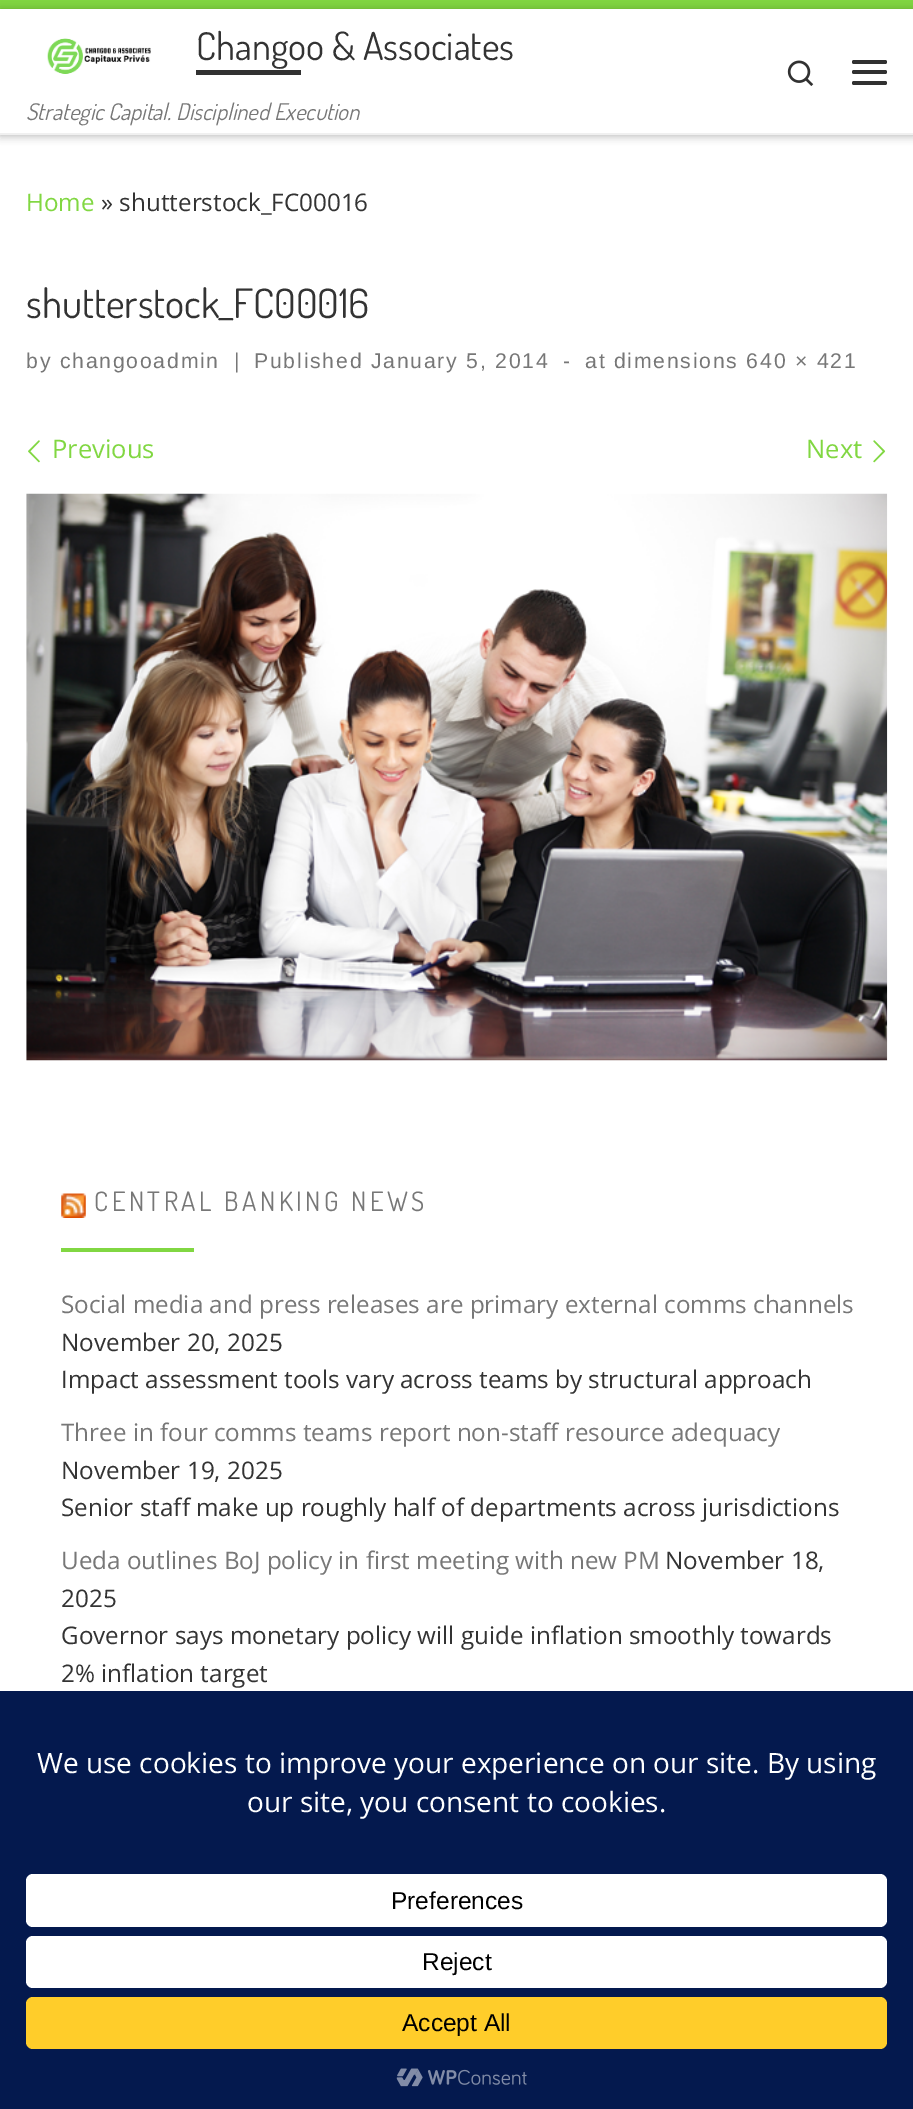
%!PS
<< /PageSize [913 2109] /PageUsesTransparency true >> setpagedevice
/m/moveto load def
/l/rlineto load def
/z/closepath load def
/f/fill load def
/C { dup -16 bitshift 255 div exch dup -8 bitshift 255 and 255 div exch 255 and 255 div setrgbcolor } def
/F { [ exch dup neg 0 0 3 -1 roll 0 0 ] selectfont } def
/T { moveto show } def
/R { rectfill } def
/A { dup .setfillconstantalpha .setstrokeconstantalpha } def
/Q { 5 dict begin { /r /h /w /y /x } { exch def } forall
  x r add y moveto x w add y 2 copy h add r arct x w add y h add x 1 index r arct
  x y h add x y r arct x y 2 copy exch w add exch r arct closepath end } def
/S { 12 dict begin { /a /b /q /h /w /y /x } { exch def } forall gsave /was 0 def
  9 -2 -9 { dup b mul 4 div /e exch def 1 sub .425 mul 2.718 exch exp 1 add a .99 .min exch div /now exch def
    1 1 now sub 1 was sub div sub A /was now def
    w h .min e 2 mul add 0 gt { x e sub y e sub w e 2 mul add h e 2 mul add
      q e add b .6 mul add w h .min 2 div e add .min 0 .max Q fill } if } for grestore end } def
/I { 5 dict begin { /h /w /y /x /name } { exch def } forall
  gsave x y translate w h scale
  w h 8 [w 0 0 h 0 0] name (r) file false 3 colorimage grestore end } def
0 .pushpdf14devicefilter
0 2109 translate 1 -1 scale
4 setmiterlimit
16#FFFFFF C
0 0 913 2109 R
16#666666 C
0 4 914 136 0 2 .08 S
16#81D742 C
0 0 913 9 R
16#EFEFEF C
0 135 m 0 2 l 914 0 l 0 -126 l 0 124 l z f
16#000000 C
0 9 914 126 0 4.5 .2 S
16#FFFFFF C
0 9 913 124 R
(1.rgb) 47 38 104 36 I
/Dosis-Regular 38.25 F
16#333333 C
(Changoo & Associates) 196 60 T
16#313131 C
196 70 105 5 R
/Dosis-Italic 23 F
16#777777 C
(Strategic Capital. Disciplined Execution) 26 120 T
(2.rgb) 787 60 27 26 I
16#313131 C
852 60 35 4 2 Q f
852 70 35 4 2 Q f
852 81 35 4 2 Q f
16#F0F0F0 C
0 133 913 2 R
/OpenSans-Regular 24.25 F
16#81D742 C
(Home) 26 211 T
16#333333 C
(» shutterstock_FC00016) 101 211 T
/Dosis-Regular 40.5 F
(shutterstock_FC00016) 26 318 T
/LiberationSans-Regular 21.25 F
16#777777 C
26 368 m 1.75 0 (by changooadmin) ashow
234 368 m 1.75 0 (|) ashow
254 368 m 1.75 0 (Published January 5, 2014) ashow
563 368 m 1.75 0 (-) ashow
585 368 m 1.75 0 (at dimensions 640 × 421) ashow
(3.rgb) 28 440 12 23 I
/OpenSans-Regular 25.5 F
16#81D742 C
(Previous) 52 458 T
(Next) 806 458 T
(4.rgb) 873 440 13 23 I
(5.rgb) 26 493 862 568 I
(6.rgb) 61 1193 25 25 I
/Dosis-Regular 26.75 F
16#777777 C
94 1211 m 3.5 0 (CENTRAL BANKING NEWS) ashow
16#81D742 C
61 1248 133 4 R
/OpenSans-Regular 24.25 F
16#777777 C
(Social media and press releases are primary external comms channels) 61 1313 T
16#333333 C
(November 20, 2025) 61 1351 T
(Impact assessment tools vary across teams by structural approach) 61 1388 T
16#777777 C
(Three in four comms teams report non-staff resource adequacy) 61 1441 T
16#333333 C
(November 19, 2025) 61 1479 T
(Senior staff make up roughly half of departments across jurisdictions) 61 1516 T
16#777777 C
(Ueda outlines BoJ policy in first meeting with new PM) 61 1569 T
16#333333 C
(November 18,) 665 1569 T
(2025) 61 1607 T
(Governor says monetary policy will guide inflation smoothly towards) 61 1644 T
(2% inflation target) 61 1682 T
16#04194E C
0 1691 913 418 R
/OpenSans-Regular 28 F
16#FFFFFF C
(We use cookies to improve your experience on our site. By using) 37 1773 T
(our site, you consent to cookies.) 247 1812 T
26 1874 861 53 7 Q f
/LiberationSans-Regular 24.5 F
16#000000 C
(Preferences) 391 1909 T
16#FFFFFF C
26 1936 861 52 7 Q f
16#000000 C
(Reject) 422 1970 T
16#FFCD2A C
26 1997 861 52 7 Q f
16#000000 C
(Accept All) 402 2031 T
(7.rgb) 396 2068 131 19 I
.poppdf14devicefilter showpage
